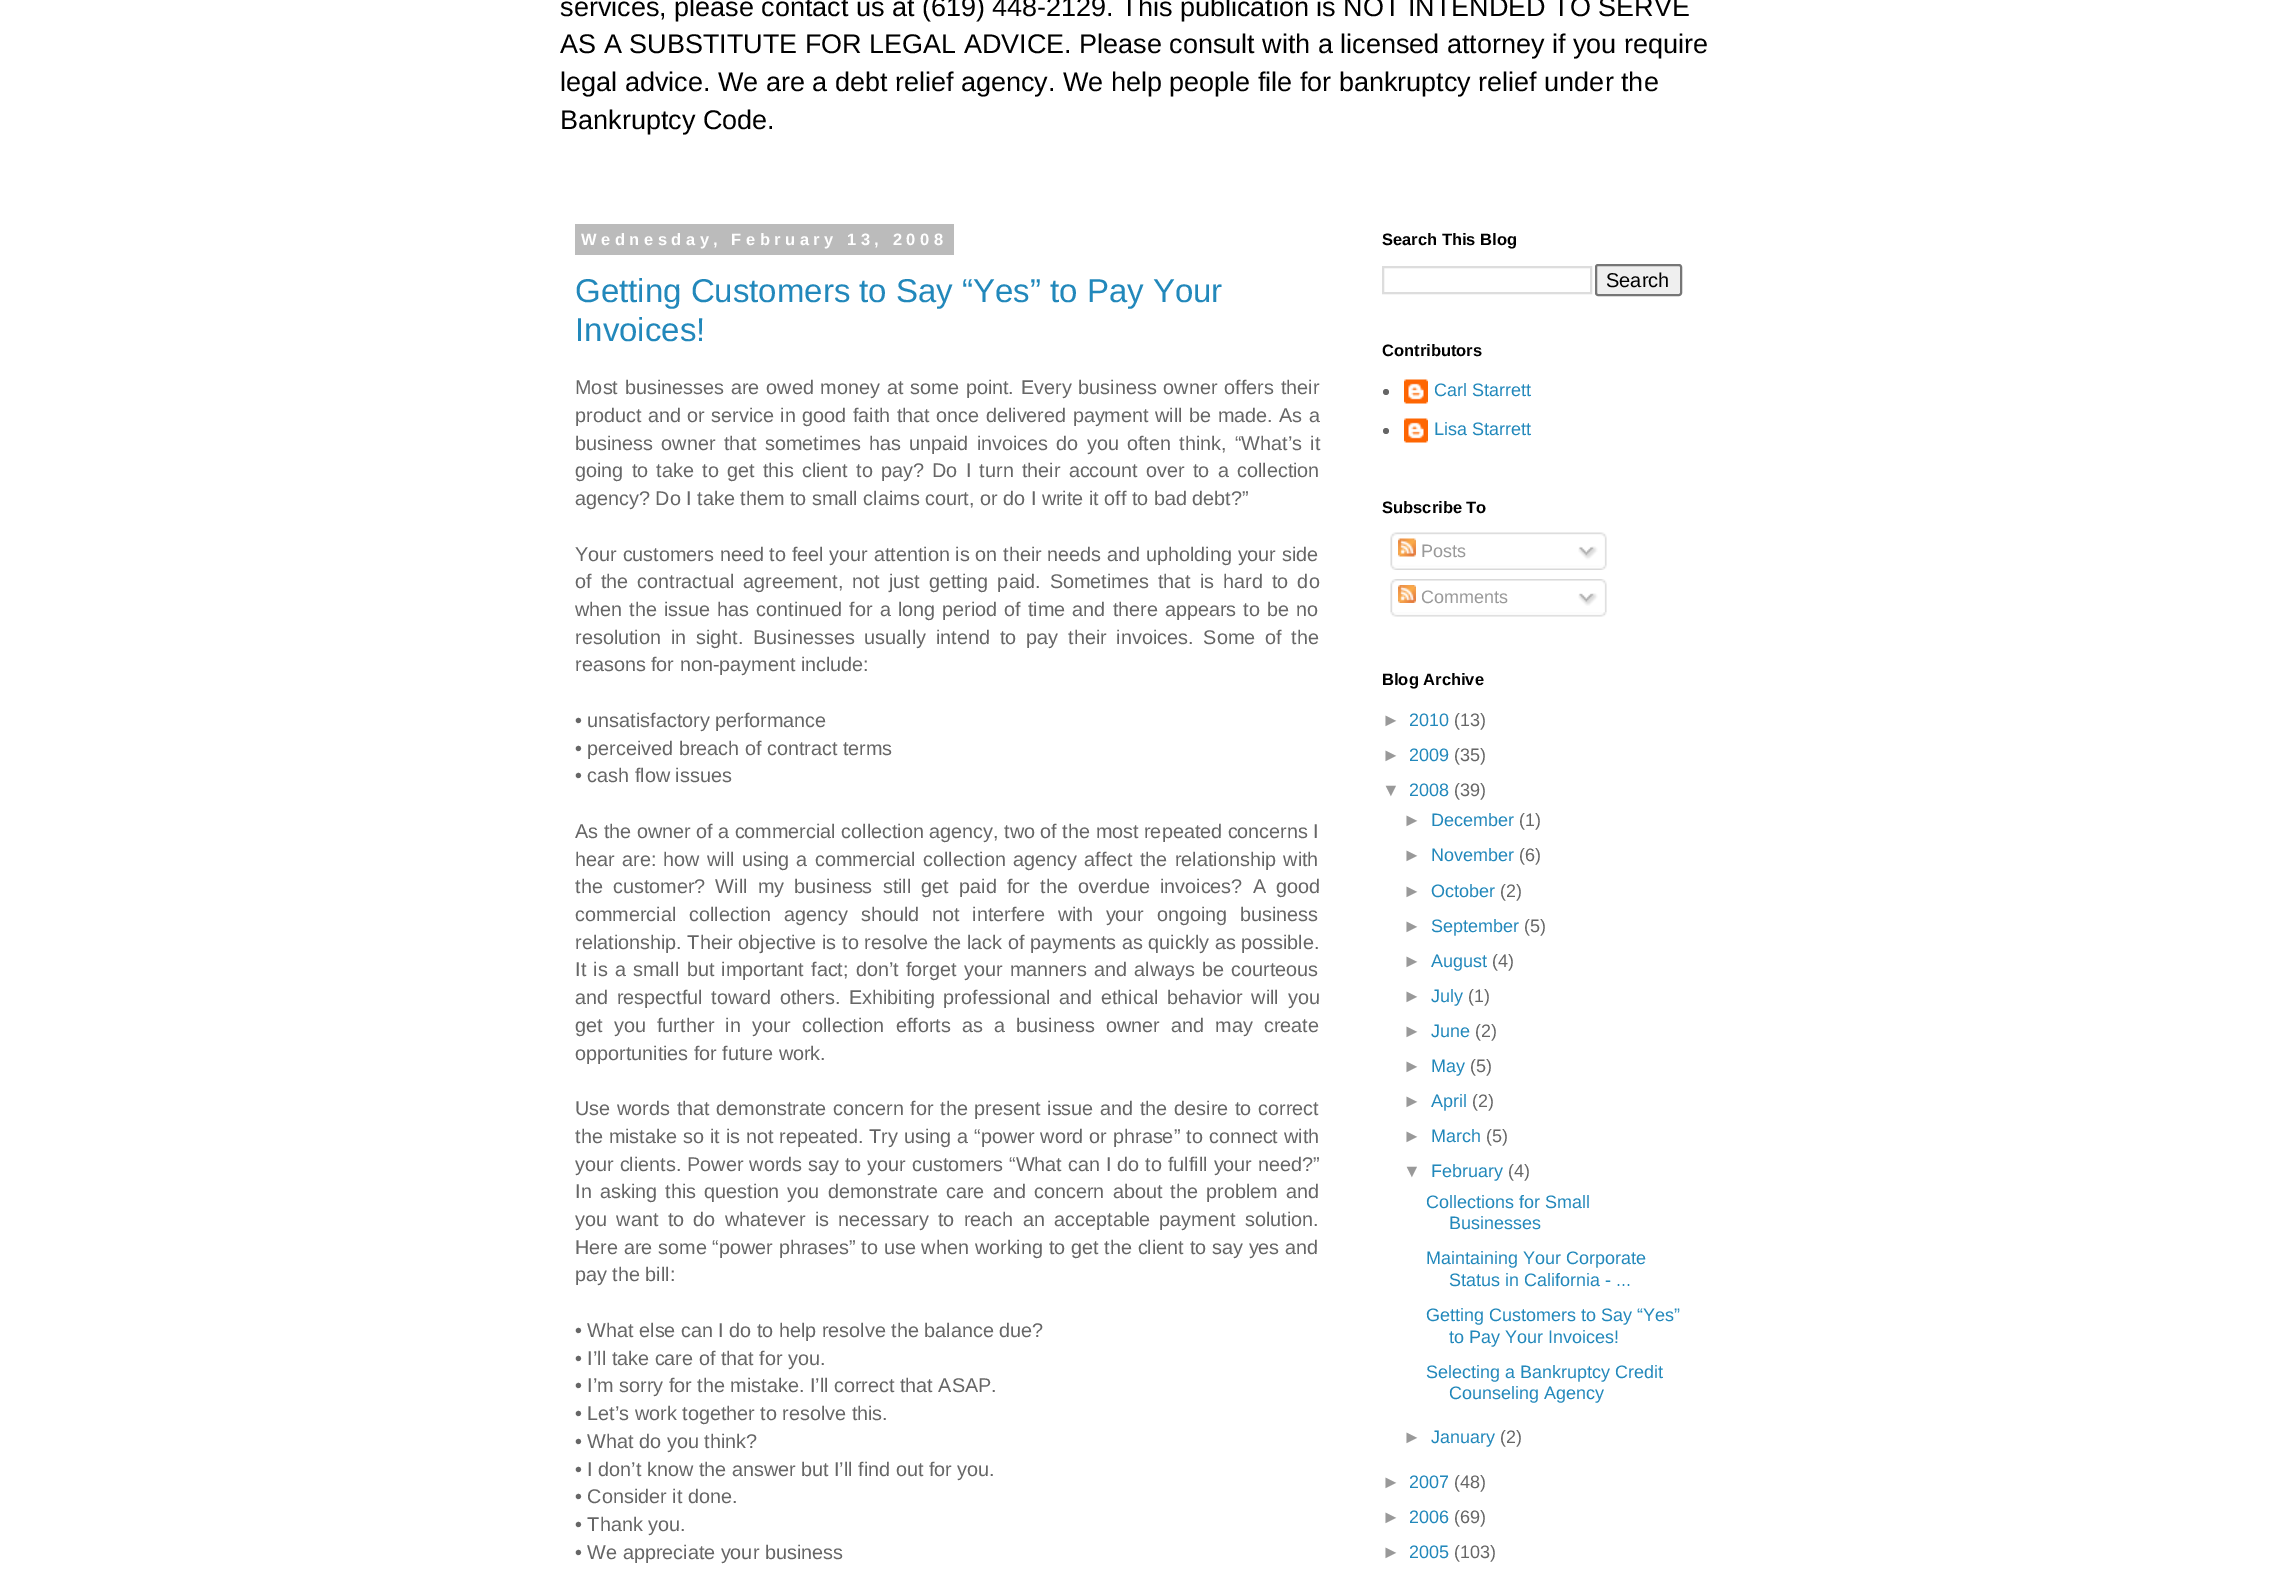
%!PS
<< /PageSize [2283 1579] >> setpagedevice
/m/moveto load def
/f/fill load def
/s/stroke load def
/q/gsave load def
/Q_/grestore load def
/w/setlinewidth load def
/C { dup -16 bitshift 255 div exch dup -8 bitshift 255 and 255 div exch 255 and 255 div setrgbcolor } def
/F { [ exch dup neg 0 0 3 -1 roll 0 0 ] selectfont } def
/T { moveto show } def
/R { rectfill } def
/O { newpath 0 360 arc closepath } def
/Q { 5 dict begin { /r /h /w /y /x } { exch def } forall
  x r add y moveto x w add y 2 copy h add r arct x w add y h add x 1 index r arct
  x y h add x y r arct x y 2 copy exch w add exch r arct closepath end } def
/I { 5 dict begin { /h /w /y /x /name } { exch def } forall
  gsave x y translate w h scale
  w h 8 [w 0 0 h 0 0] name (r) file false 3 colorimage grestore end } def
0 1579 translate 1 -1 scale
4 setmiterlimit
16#FFFFFF C
0 0 2283 1579 R
/LiberationSans-Regular 27 F
16#000000 C
(services, please contact us at \(619\) 448-2129. This publication is NOT INTENDED TO SERVE) 560 16 T
(AS A SUBSTITUTE FOR LEGAL ADVICE. Please consult with a licensed attorney if you require) 560 53 T
(legal advice. We are a debt relief agency. We help people file for bankruptcy relief under the) 560 91 T
(Bankruptcy Code.) 560 129 T
16#BBBBBB C
575 224 379 31 R
/LiberationSans-Bold 16.5 F
16#FFFFFF C
581 245 m 4.5 0 (Wednesday, February 13, 2008) ashow
/LiberationSans-Regular 33 F
16#2288BB C
(Getting Customers to Say “Yes” to Pay Your) 575 302 T
(Invoices!) 575 341 T
/LiberationSans-Regular 19.8 F
16#666666 C
575 394 m 1.4 0 32 (Most businesses are owed money at some point. Every business owner offers their) widthshow
575 422 m 1 0 32 (product and or service in good faith that once delivered payment will be made. As a) widthshow
575 450 m 2.75 0 32 (business owner that sometimes has unpaid invoices do you often think, “What’s it) widthshow
575 477 m 2.75 0 32 (going to take to get this client to pay? Do I turn their account over to a collection) widthshow
(agency? Do I take them to small claims court, or do I write it off to bad debt?”) 575 505 T
575 561 m .25 0 32 (Your customers need to feel your attention is on their needs and upholding your side) widthshow
575 588 m 3.6 0 32 (of the contractual agreement, not just getting paid. Sometimes that is hard to do) widthshow
575 616 m 1.6 0 32 (when the issue has continued for a long period of time and there appears to be no) widthshow
575 644 m 4.4 0 32 (resolution in sight. Businesses usually intend to pay their invoices. Some of the) widthshow
(reasons for non-payment include:) 575 671 T
(• unsatisfactory performance) 575 727 T
(• perceived breach of contract terms) 575 755 T
(• cash flow issues) 575 782 T
(As the owner of a commercial collection agency, two of the most repeated concerns I) 575 838 T
575 866 m 1.8 0 32 (hear are: how will using a commercial collection agency affect the relationship with) widthshow
575 893 m 4.75 0 32 (the customer? Will my business still get paid for the overdue invoices? A good) widthshow
575 921 m 7.25 0 32 (commercial collection agency should not interfere with your ongoing business) widthshow
575 949 m .2 0 32 (relationship. Their objective is to resolve the lack of payments as quickly as possible.) widthshow
575 976 m 1.75 0 32 (It is a small but important fact; don’t forget your manners and always be courteous) widthshow
575 1004 m 3.25 0 32 (and respectful toward others. Exhibiting professional and ethical behavior will you) widthshow
575 1032 m 5.75 0 32 (get you further in your collection efforts as a business owner and may create) widthshow
(opportunities for future work.) 575 1060 T
575 1115 m 1.25 0 32 (Use words that demonstrate concern for the present issue and the desire to correct) widthshow
575 1143 m .5 0 32 (the mistake so it is not repeated. Try using a “power word or phrase” to connect with) widthshow
575 1171 m .5 0 32 (your clients. Power words say to your customers “What can I do to fulfill your need?”) widthshow
575 1198 m 2.75 0 32 (In asking this question you demonstrate care and concern about the problem and) widthshow
575 1226 m 3.9 0 32 (you want to do whatever is necessary to reach an acceptable payment solution.) widthshow
575 1254 m .3 0 32 (Here are some “power phrases” to use when working to get the client to say yes and) widthshow
(pay the bill:) 575 1281 T
(• What else can I do to help resolve the balance due?) 575 1337 T
(• I’ll take care of that for you.) 575 1365 T
(• I’m sorry for the mistake. I’ll correct that ASAP.) 575 1392 T
(• Let’s work together to resolve this.) 575 1420 T
(• What do you think?) 575 1448 T
(• I don’t know the answer but I’ll find out for you.) 575 1476 T
(• Consider it done.) 575 1503 T
(• Thank you.) 575 1531 T
(• We appreciate your business) 575 1559 T
/LiberationSans-Bold 16.5 F
16#000000 C
(Search This Blog) 1382 245 T
16#DDDDDD C
2 w
1383 267 208 26 rectstroke
16#EFEFEF C
1596 265 85 30 2 Q q f Q_
16#767676 C
s
/LiberationSans-Regular 20 F
16#000000 C
(Search) 1606 287 T
/LiberationSans-Bold 16.5 F
(Contributors) 1382 356 T
16#666666 C
1386 392 3 O f
(1.rgb) 1404 379 24 25 I
/LiberationSans-Regular 18 F
16#2288BB C
(Carl Starrett) 1434 396 T
16#666666 C
1386 431 3 O f
(1.rgb) 1404 418 24 25 I
16#2288BB C
(Lisa Starrett) 1434 435 T
/LiberationSans-Bold 16.5 F
16#000000 C
(Subscribe To) 1382 513 T
(2.rgb) 1390 532 217 34 I
(3.rgb) 1398 538 18 19 I
/LiberationSans-Regular 18 F
16#999999 C
(Posts) 1421 557 T
(4.rgb) 1578 546 20 14 I
(5.rgb) 1390 565 217 5 I
(6.rgb) 1390 579 217 33 I
(7.rgb) 1398 585 18 18 I
(Comments) 1421 603 T
(8.rgb) 1578 593 20 13 I
(9.rgb) 1390 612 217 5 I
/LiberationSans-Bold 16.5 F
16#000000 C
(Blog Archive) 1382 685 T
/LiberationSans-Regular 18 F
16#999999 C
(►) 1382 726 T
16#2288BB C
(2010) 1409 726 T
16#666666 C
(\(13\)) 1454 726 T
16#999999 C
(►) 1382 761 T
16#2288BB C
(2009) 1409 761 T
16#666666 C
(\(35\)) 1454 761 T
16#999999 C
(▼) 1382 796 T
16#2288BB C
(2008) 1409 796 T
16#666666 C
(\(39\)) 1454 796 T
16#999999 C
(►) 1403 826 T
16#2288BB C
(December) 1431 826 T
16#666666 C
(\(1\)) 1519 826 T
16#999999 C
(►) 1403 861 T
16#2288BB C
(November) 1431 861 T
16#666666 C
(\(6\)) 1519 861 T
16#999999 C
(►) 1403 897 T
16#2288BB C
(October) 1431 897 T
16#666666 C
(\(2\)) 1500 897 T
16#999999 C
(►) 1403 932 T
16#2288BB C
(September) 1431 932 T
16#666666 C
(\(5\)) 1524 932 T
16#999999 C
(►) 1403 967 T
16#2288BB C
(August) 1431 967 T
16#666666 C
(\(4\)) 1492 967 T
16#999999 C
(►) 1403 1002 T
16#2288BB C
(July) 1431 1002 T
16#666666 C
(\(1\)) 1468 1002 T
16#999999 C
(►) 1403 1037 T
16#2288BB C
(June) 1431 1037 T
16#666666 C
(\(2\)) 1475 1037 T
16#999999 C
(►) 1403 1072 T
16#2288BB C
(May) 1431 1072 T
16#666666 C
(\(5\)) 1470 1072 T
16#999999 C
(►) 1403 1107 T
16#2288BB C
(April) 1431 1107 T
16#666666 C
(\(2\)) 1472 1107 T
16#999999 C
(►) 1403 1142 T
16#2288BB C
(March) 1431 1142 T
16#666666 C
(\(5\)) 1486 1142 T
16#999999 C
(▼) 1403 1177 T
16#2288BB C
(February) 1431 1177 T
16#666666 C
(\(4\)) 1508 1177 T
16#2288BB C
(Collections for Small) 1426 1208 T
(Businesses) 1449 1229 T
(Maintaining Your Corporate) 1426 1264 T
(Status in California - ...) 1449 1286 T
(Getting Customers to Say “Yes”) 1426 1321 T
(to Pay Your Invoices!) 1449 1343 T
(Selecting a Bankruptcy Credit) 1426 1378 T
(Counseling Agency) 1449 1399 T
16#999999 C
(►) 1403 1443 T
16#2288BB C
(January) 1431 1443 T
16#666666 C
(\(2\)) 1500 1443 T
16#999999 C
(►) 1382 1488 T
16#2288BB C
(2007) 1409 1488 T
16#666666 C
(\(48\)) 1454 1488 T
16#999999 C
(►) 1382 1523 T
16#2288BB C
(2006) 1409 1523 T
16#666666 C
(\(69\)) 1454 1523 T
16#999999 C
(►) 1382 1558 T
16#2288BB C
(2005) 1409 1558 T
16#666666 C
(\(103\)) 1454 1558 T
showpage
